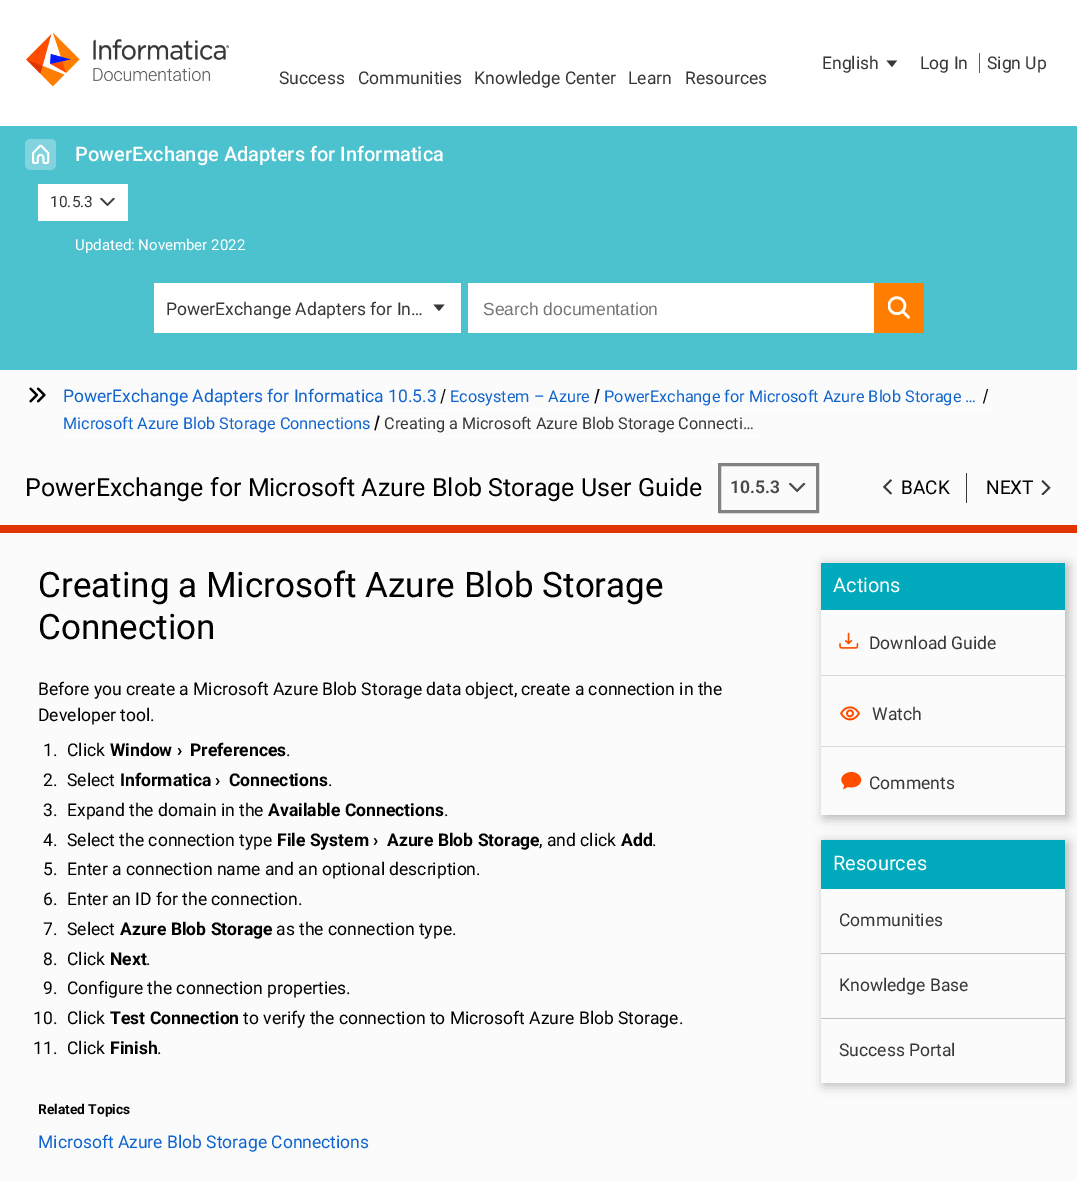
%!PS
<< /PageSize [1077 1181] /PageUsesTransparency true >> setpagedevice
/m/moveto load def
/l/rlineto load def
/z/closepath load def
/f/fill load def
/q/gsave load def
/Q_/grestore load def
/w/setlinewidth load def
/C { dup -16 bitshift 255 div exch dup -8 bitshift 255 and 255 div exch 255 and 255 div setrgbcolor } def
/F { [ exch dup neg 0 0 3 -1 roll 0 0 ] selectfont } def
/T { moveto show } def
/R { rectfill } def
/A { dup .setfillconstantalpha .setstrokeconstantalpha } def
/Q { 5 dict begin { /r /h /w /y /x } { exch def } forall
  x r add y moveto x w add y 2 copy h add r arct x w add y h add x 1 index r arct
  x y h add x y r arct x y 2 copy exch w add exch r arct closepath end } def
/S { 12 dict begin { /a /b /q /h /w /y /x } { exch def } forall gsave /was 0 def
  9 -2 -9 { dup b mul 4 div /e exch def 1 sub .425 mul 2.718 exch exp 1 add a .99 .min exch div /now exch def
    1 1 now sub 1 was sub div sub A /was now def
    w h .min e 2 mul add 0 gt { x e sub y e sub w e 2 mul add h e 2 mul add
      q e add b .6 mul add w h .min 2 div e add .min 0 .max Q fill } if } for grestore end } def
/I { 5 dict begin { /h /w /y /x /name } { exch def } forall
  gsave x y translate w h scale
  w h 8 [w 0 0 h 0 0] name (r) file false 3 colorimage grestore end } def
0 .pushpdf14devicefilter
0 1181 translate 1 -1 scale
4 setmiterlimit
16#FFFFFF C
0 0 1077 1181 R
(1.rgb) 26 32 204 55 I
/Roboto-Regular 17.5 F
16#373737 C
(English) 822 69 T
897 60.5 m -5 6.5 l -5.5 -6.5 l z f
(Log In) 920 69 T
16#5D5D5D C
979 53 1 20 R
16#373737 C
(Sign Up) 987 69 T
(Success) 279 84 T
(Communities) 358 84 T
(Knowledge Center) 474 84 T
(Learn) 628 84 T
(Resources) 685 84 T
16#4DC2CF C
0 126 1077 244 R
(2.rgb) 25 139 31 31 I
/Roboto-Medium 20 F
16#FFFFFF C
(PowerExchange Adapters for Informatica) 75 161 T
38 184 90 37 R
/Roboto-Regular 15.5 F
16#373737 C
(10.5.3) 50 207 T
(3.rgb) 100 198 15 8 I
/Roboto-Regular 15 F
16#FFFFFF C
(Updated: November 2022) 75 250 T
154 283 307 50 R
/Roboto-Regular 17.5 F
16#373737 C
(PowerExchange Adapters for In…) 166 315 T
444.5 304.5 m -5.5 6.5 l -5.5 -6.5 l z f
16#FFFFFF C
468 283 406 50 R
/LiberationSans-Regular 17.5 F
16#757575 C
(Search documentation) 483 315 T
16#FF7D00 C
874 283 50 50 R
(4.rgb) 888 296 22 23 I
16#FBFBFB C
0 370 1077 811 R
(5.rgb) 29 387 17 16 I
16#FFFFFF C
63 410 387 1 R
/Roboto-Regular 17.5 F
16#0F64CD C
(PowerExchange Adapters for Informatica 10.5.3) 63 402 T
16#000000 C
444.5 389 m 1 0 l -4 14.5 l -1 0 l z f
16#FFFFFF C
450 409 543 1 R
/Roboto-Regular 16.25 F
16#0F64CD C
(Ecosystem – Azure) 450 402 T
16#000000 C
598 389 m 1.5 0 l -4 14.5 l -1 0 l z f
16#0F64CD C
(PowerExchange for Microsoft Azure Blob Storage …) 604 402 T
16#000000 C
987 389 m 1 0 l -4 14.5 l -1 0 l z f
16#FFFFFF C
63 436 696 1 R
16#0F64CD C
(Microsoft Azure Blob Storage Connections) 63 429 T
16#000000 C
378 415.5 m 1.5 .5 l -4 14.5 l -1 -.5 l z f
16#373737 C
(Creating a Microsoft Azure Blob Storage Connecti…) 384 429 T
/Roboto-Regular 25 F
16#000000 C
(PowerExchange for Microsoft Azure Blob Storage User Guide) 25 496 T
16#828282 C
3 w
719.5 464.5 98 47 rectstroke
/Roboto-SemiBold 17.5 F
16#484848 C
(10.5.3) 730 493 T
(6.rgb) 789 483 17 10 I
(7.rgb) 883 479 9 16 I
/Roboto-Regular 19 F
16#000000 C
(BACK) 901 494 T
16#373737 C
966 473 1 30 R
16#000000 C
(NEXT) 986 494 T
(8.rgb) 1041 480 10 15 I
16#E23400 C
0 525 1077 8 R
/Roboto-Regular 35 F
16#000000 C
(Creating a Microsoft Azure Blob Storage) 38 597 T
(Connection) 38 639 T
/Roboto-Regular 17.5 F
(Before you create a Microsoft Azure Blob Storage data object, create a connection in the) 38 695 T
(Developer tool.) 38 721 T
(1.) 43 756 T
(Click) 67 756 T
/Roboto-Bold 17.5 F
(Window ›) 110 756 T
(Preferences) 190 756 T
/Roboto-Regular 17.5 F
(.) 286 756 T
(2.) 43 786 T
(Select) 67 786 T
/Roboto-Bold 17.5 F
(Informatica ›) 120 786 T
(Connections) 229 786 T
/Roboto-Regular 17.5 F
(.) 328 786 T
(3.) 43 816 T
(Expand the domain in the) 67 816 T
/Roboto-Bold 17.5 F
(Available Connections) 268 816 T
/Roboto-Regular 17.5 F
(.) 444 816 T
(4.) 43 846 T
(Select the connection type) 67 846 T
/Roboto-Bold 17.5 F
(File System ›) 277 846 T
(Azure Blob Storage) 387 846 T
/Roboto-Regular 17.5 F
(, and click) 539 846 T
/Roboto-Bold 17.5 F
(Add) 621 846 T
/Roboto-Regular 17.5 F
(.) 652 846 T
(5.) 43 875 T
(Enter a connection name and an optional description.) 67 875 T
(6.) 43 905 T
(Enter an ID for the connection.) 67 905 T
(7.) 43 935 T
(Select) 67 935 T
/Roboto-Bold 17.5 F
(Azure Blob Storage) 120 935 T
/Roboto-Regular 17.5 F
(as the connection type.) 276 935 T
(8.) 43 965 T
(Click) 67 965 T
/Roboto-Bold 17.5 F
(Next) 110 965 T
/Roboto-Regular 17.5 F
(.) 146 965 T
(9.) 43 994 T
(Configure the connection properties.) 67 994 T
(10.) 33 1024 T
(Click) 67 1024 T
/Roboto-Bold 17.5 F
(Test Connection) 110 1024 T
/Roboto-Regular 17.5 F
(to verify the connection to Microsoft Azure Blob Storage.) 243 1024 T
(11.) 33 1054 T
(Click) 67 1054 T
/Roboto-Bold 17.5 F
(Finish) 110 1054 T
/Roboto-Regular 17.5 F
(.) 157 1054 T
/Roboto-Bold 13.75 F
(Related Topics) 38 1114 T
/Roboto-Regular 17.5 F
16#0F64CD C
(Microsoft Azure Blob Storage Connections) 38 1148 T
q
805 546 m 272 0 l 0 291 l -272 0 l z 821 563 m 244 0 l 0 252 l -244 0 l z eoclip newpath
16#000000 C
824 565 244 253 0 6 .3 S
Q_
16#00A9BB C
821 563 244 47 R
/Roboto-Regular 20 F
16#FFFFFF C
(Actions) 833 592 T
16#D8D8D8 C
821 675 244 1 R
(9.rgb) 839 632 20 17 I
/Roboto-Regular 17.5 F
16#373737 C
(Download Guide) 869 649 T
16#D8D8D8 C
821 746 244 1 R
(10.rgb) 840 706 20 15 I
16#373737 C
(Watch) 872 720 T
(11.rgb) 841 771 21 19 I
(Comments) 869 789 T
q
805 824 m 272 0 l 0 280 l -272 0 l z 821 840 m 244 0 l 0 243 l -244 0 l z eoclip newpath
16#000000 C
824 843 244 242 0 6 .3 S
Q_
16#00A9BB C
821 840 244 49 R
/Roboto-Regular 20 F
16#FFFFFF C
(Resources) 833 870 T
16#C1C1C1 C
821 953 244 1 R
/Roboto-Regular 17.5 F
16#373737 C
(Communities) 839 926 T
16#C1C1C1 C
821 1018 244 1 R
16#373737 C
(Knowledge Base) 839 991 T
(Success Portal) 839 1056 T
.poppdf14devicefilter showpage
